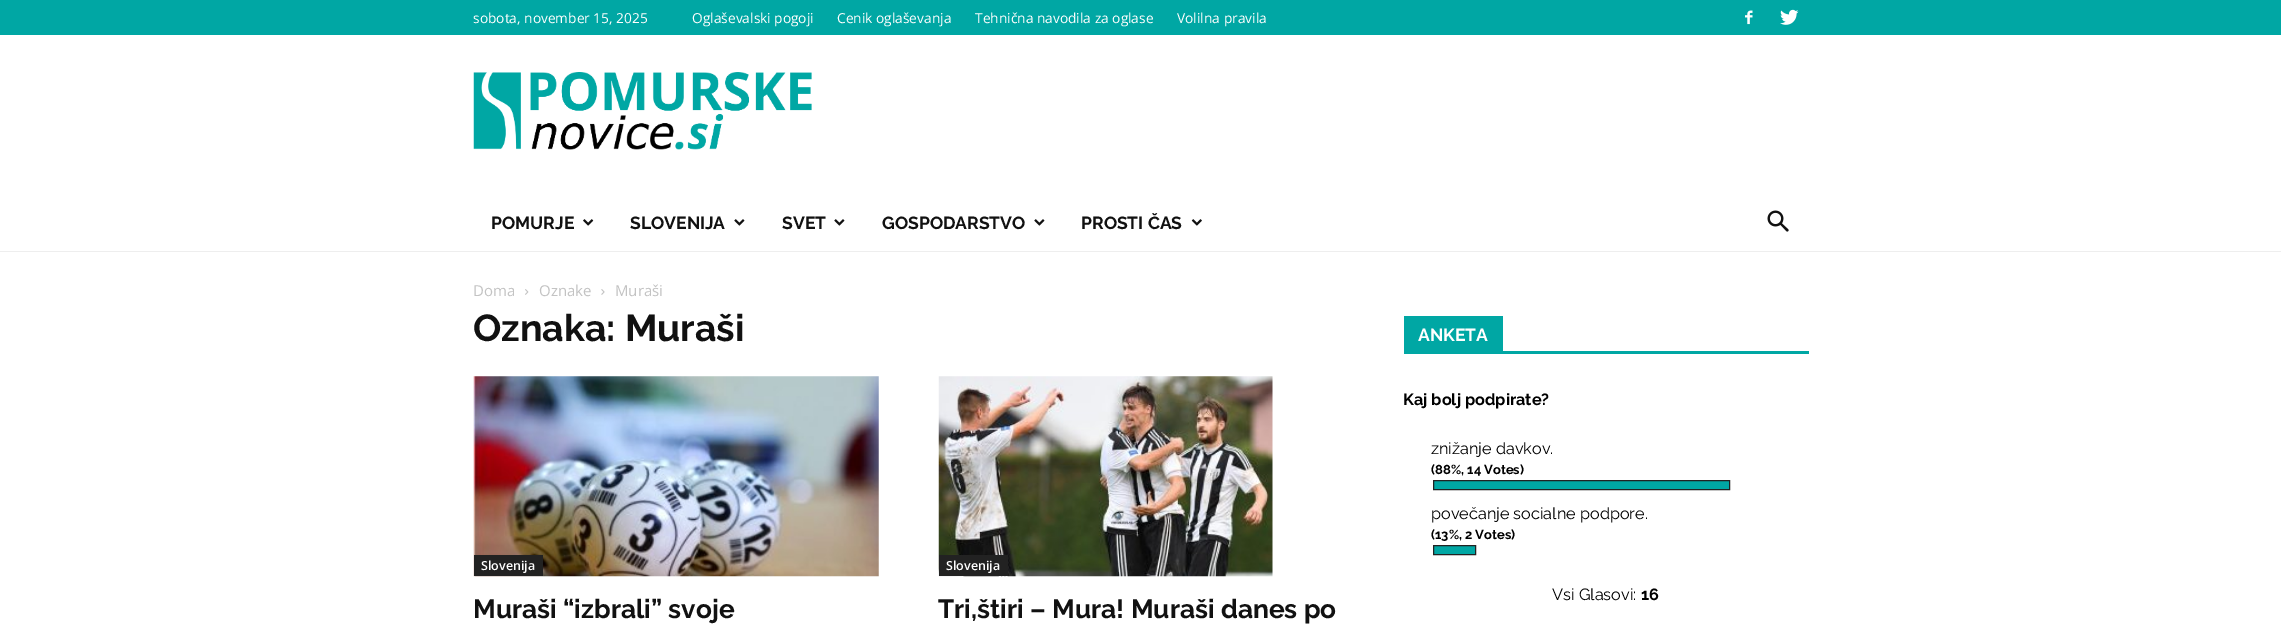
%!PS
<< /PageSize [2281 631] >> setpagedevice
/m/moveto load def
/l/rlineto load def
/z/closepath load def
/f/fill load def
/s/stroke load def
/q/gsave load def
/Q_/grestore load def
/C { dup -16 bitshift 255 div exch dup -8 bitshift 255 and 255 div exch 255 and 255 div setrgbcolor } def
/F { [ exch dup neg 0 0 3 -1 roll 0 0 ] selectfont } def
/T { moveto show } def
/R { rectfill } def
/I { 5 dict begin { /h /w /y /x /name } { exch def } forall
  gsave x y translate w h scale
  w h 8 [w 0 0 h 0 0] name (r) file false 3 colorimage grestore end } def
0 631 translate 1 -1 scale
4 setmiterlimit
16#FFFFFF C
0 0 2281 631 R
16#00A7A4 C
0 0 2281 35 R
/OpenSans-Regular 13.75 F
16#FFFFFF C
(sobota, november 15, 2025) 473 23 T
(Oglaševalski pogoji) 692 23 T
(Cenik oglaševanja) 837 23 T
(Tehnična navodila za oglase) 975 23 T
(Volilna pravila) 1177 23 T
(1.rgb) 1745 10 8 15 I
(2.rgb) 1780 9 19 16 I
(3.rgb) 473 72 339 78 I
16#EEEEEE C
0 251 2281 1 R
/Raleway-Bold 17.5 F
16#111111 C
(POMURJE) 491 229 T
(4.rgb) 583 219 11 7 I
(SLOVENIJA) 630 229 T
(5.rgb) 734 219 11 7 I
(SVET) 782 229 T
(5.rgb) 834 219 11 7 I
(GOSPODARSTVO) 882 229 T
(5.rgb) 1034 219 11 7 I
(PROSTI ČAS) 1081 229 T
(6.rgb) 1191 219 11 7 I
(7.rgb) 1767 210 22 22 I
/OpenSans-Regular 15 F
16#C3C3C3 C
(Doma) 473 296 T
(8.rgb) 525 289 4 6 I
(Oznake) 539 296 T
(9.rgb) 601 289 4 6 I
(Muraši) 615 296 T
/Raleway-Bold 37.5 F
16#111111 C
(Oznaka: Muraši) 473 341 T
(10.rgb) 473 376 406 201 I
16#222222 C
474 555 69 21 R
/OpenSans-SemiBold 12.5 F
16#FFFFFF C
(Slovenija) 481 570 T
/Raleway-Bold 26.25 F
16#111111 C
(Muraši “izbrali” svoje) 473 618 T
(11.rgb) 938 376 335 201 I
16#222222 C
939 555 69 21 R
/OpenSans-SemiBold 12.5 F
16#FFFFFF C
(Slovenija) 946 570 T
/Raleway-Bold 26.25 F
16#111111 C
(Tri,štiri – Mura! Muraši danes po) 938 618 T
16#00A7A4 C
1404 351 405 3 R
1404 316 99 35 R
/Raleway-Bold 17.5 F
16#FFFFFF C
(ANKETA) 1418 341 T
/Raleway-Bold 16.25 F
16#000000 C
(Kaj bolj podpirate?) 1403 405 T
/Raleway-Regular 16.25 F
(znižanje davkov.) 1431 454 T
/Raleway-Bold 13 F
(\(88%, 14 Votes\)) 1431 474 T
16#00A7A4 C
1433.5 480.5 m 296 0 l 0 9 l -296 0 l z q f Q_
16#222222 C
s
/Raleway-Regular 16.25 F
16#000000 C
(povečanje socialne podpore.) 1431 519 T
/Raleway-Bold 13 F
(\(13%, 2 Votes\)) 1431 539 T
16#00A7A4 C
1433.5 545.5 m 42 0 l 0 9 l -42 0 l z q f Q_
16#222222 C
s
/Raleway-Regular 16.25 F
16#000000 C
(Vsi Glasovi:) 1552 600 T
/Raleway-Bold 16.25 F
(16) 1641 600 T
showpage
